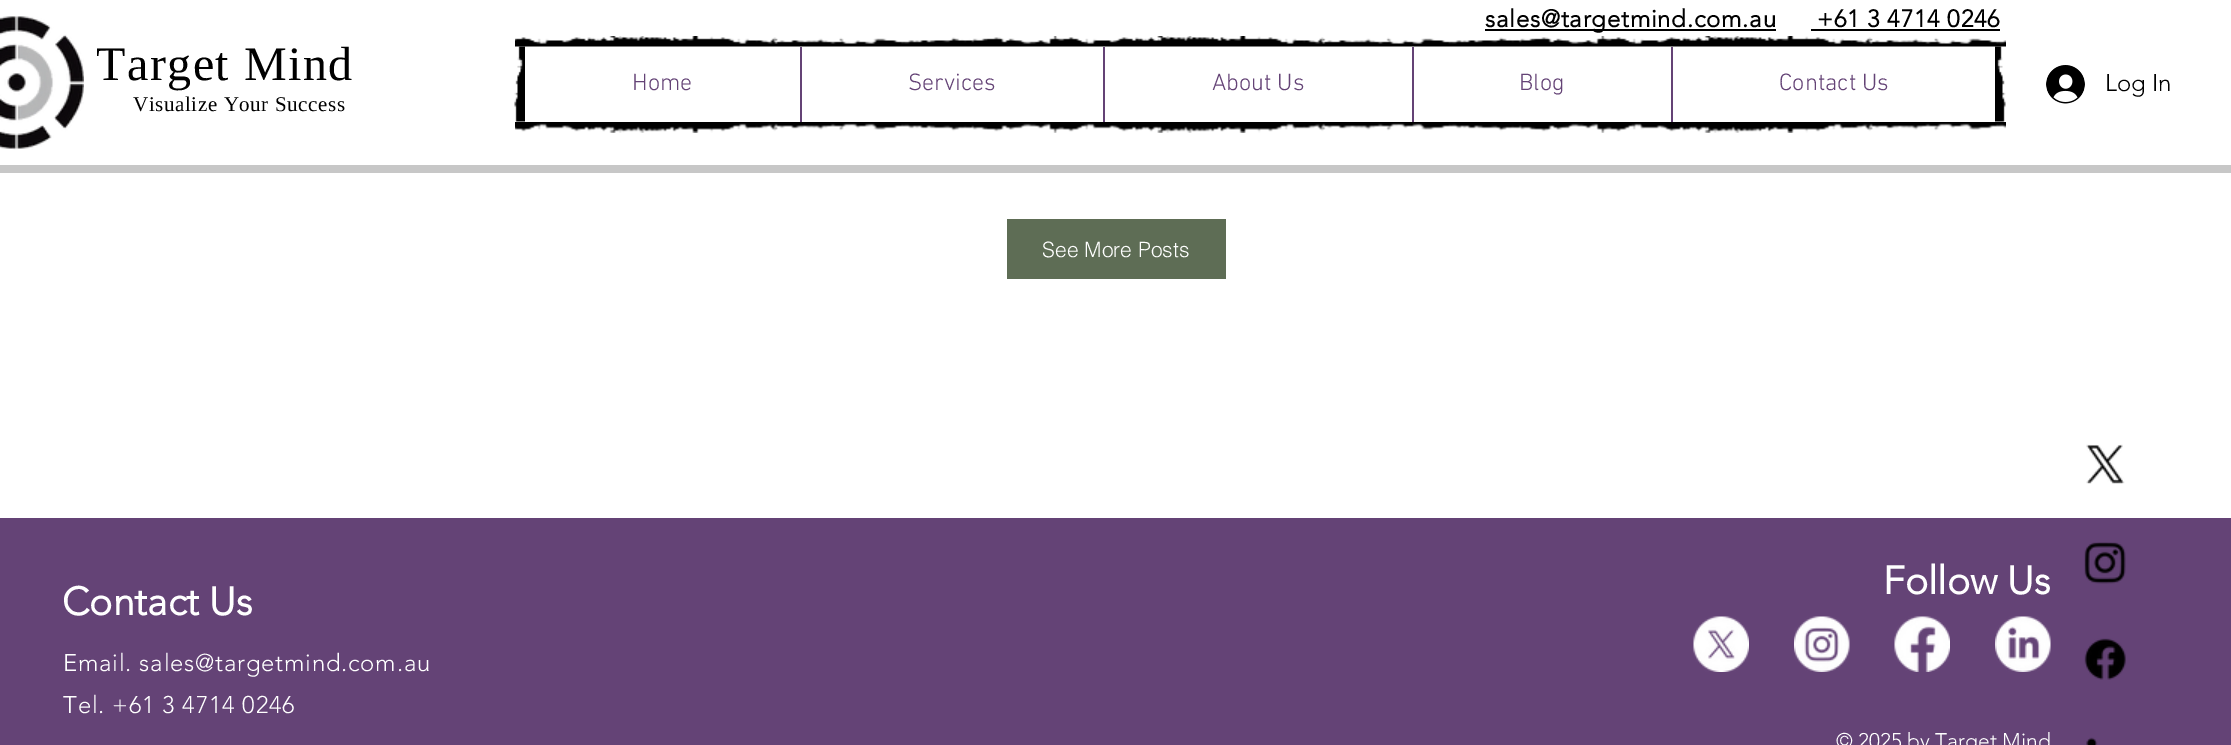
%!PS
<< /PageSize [2231 745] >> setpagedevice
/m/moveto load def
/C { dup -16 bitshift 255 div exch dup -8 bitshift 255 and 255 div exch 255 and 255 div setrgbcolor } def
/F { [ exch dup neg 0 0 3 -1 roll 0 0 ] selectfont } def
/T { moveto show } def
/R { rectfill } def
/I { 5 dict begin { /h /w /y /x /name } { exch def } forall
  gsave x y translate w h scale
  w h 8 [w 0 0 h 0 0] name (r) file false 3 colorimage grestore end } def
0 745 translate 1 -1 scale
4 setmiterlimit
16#FFFFFF C
0 0 2231 745 R
(1.rgb) 0 16 84 134 I
/LiberationSerif-Regular 48 F
16#000000 C
96 80 m 1.5 0 (Target Mind) ashow
1485 29 291 2 R
/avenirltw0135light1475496-Bold 24 F
1485 27 m .75 0 (sales@targetmind.com.au) ashow
1817 27 m .75 0 (+61 3 4714 0246) ashow
1811 29 189 2 R
(2.rgb) 515 36 1491 11 I
(3.rgb) 514 46 11 76 I
/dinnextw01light-Light 24 F
16#644376 C
(Home) 632 90 T
800 47 2 75 R
(Services) 908 90 T
1103 47 2 75 R
(About Us) 1212 90 T
1412 47 2 75 R
(Blog) 1519 90 T
1671 47 2 75 R
(Contact Us) 1779 90 T
(4.rgb) 1995 46 11 76 I
(5.rgb) 515 122 1491 11 I
(6.rgb) 2046 65 39 39 I
/avenirltw0135light1475496-Light 24 F
16#000000 C
(Log In) 2105 91 T
/LiberationSerif-Regular 21 F
133 111 m .6 0 (Visualize Your Success) ashow
16#C7C7C7 C
0 165 2231 8 R
16#5E6D55 C
1007 219 219 60 R
/helvetica-Light 21 F
16#FFFFFF C
(See More Posts) 1042 257 T
16#644376 C
0 518 2231 227 R
/avenirltw0135light1475496-Bold 39 F
16#FFFFFF C
(Follow Us) 1883 594 T
(Contact Us) 62 615 T
/avenirltw0135light1475496-Light 24 F
63 671 m .75 0 (Email. sales@targetmind.com.au) ashow
(7.rgb) 1693 616 56 56 I
(8.rgb) 1794 616 56 56 I
(9.rgb) 1894 616 56 56 I
(10.rgb) 1995 616 56 56 I
63 713 m .75 0 (Tel. +61 3 4714 0246) ashow
/avenirltw0135light1475496-Light 21 F
(© 2025 by Target Mind) 1836 748 T
(11.rgb) 2086 444 39 40 I
(12.rgb) 2084 542 42 42 I
(13.rgb) 2084 638 42 42 I
(14.rgb) 2086 737 12 8 I
showpage
